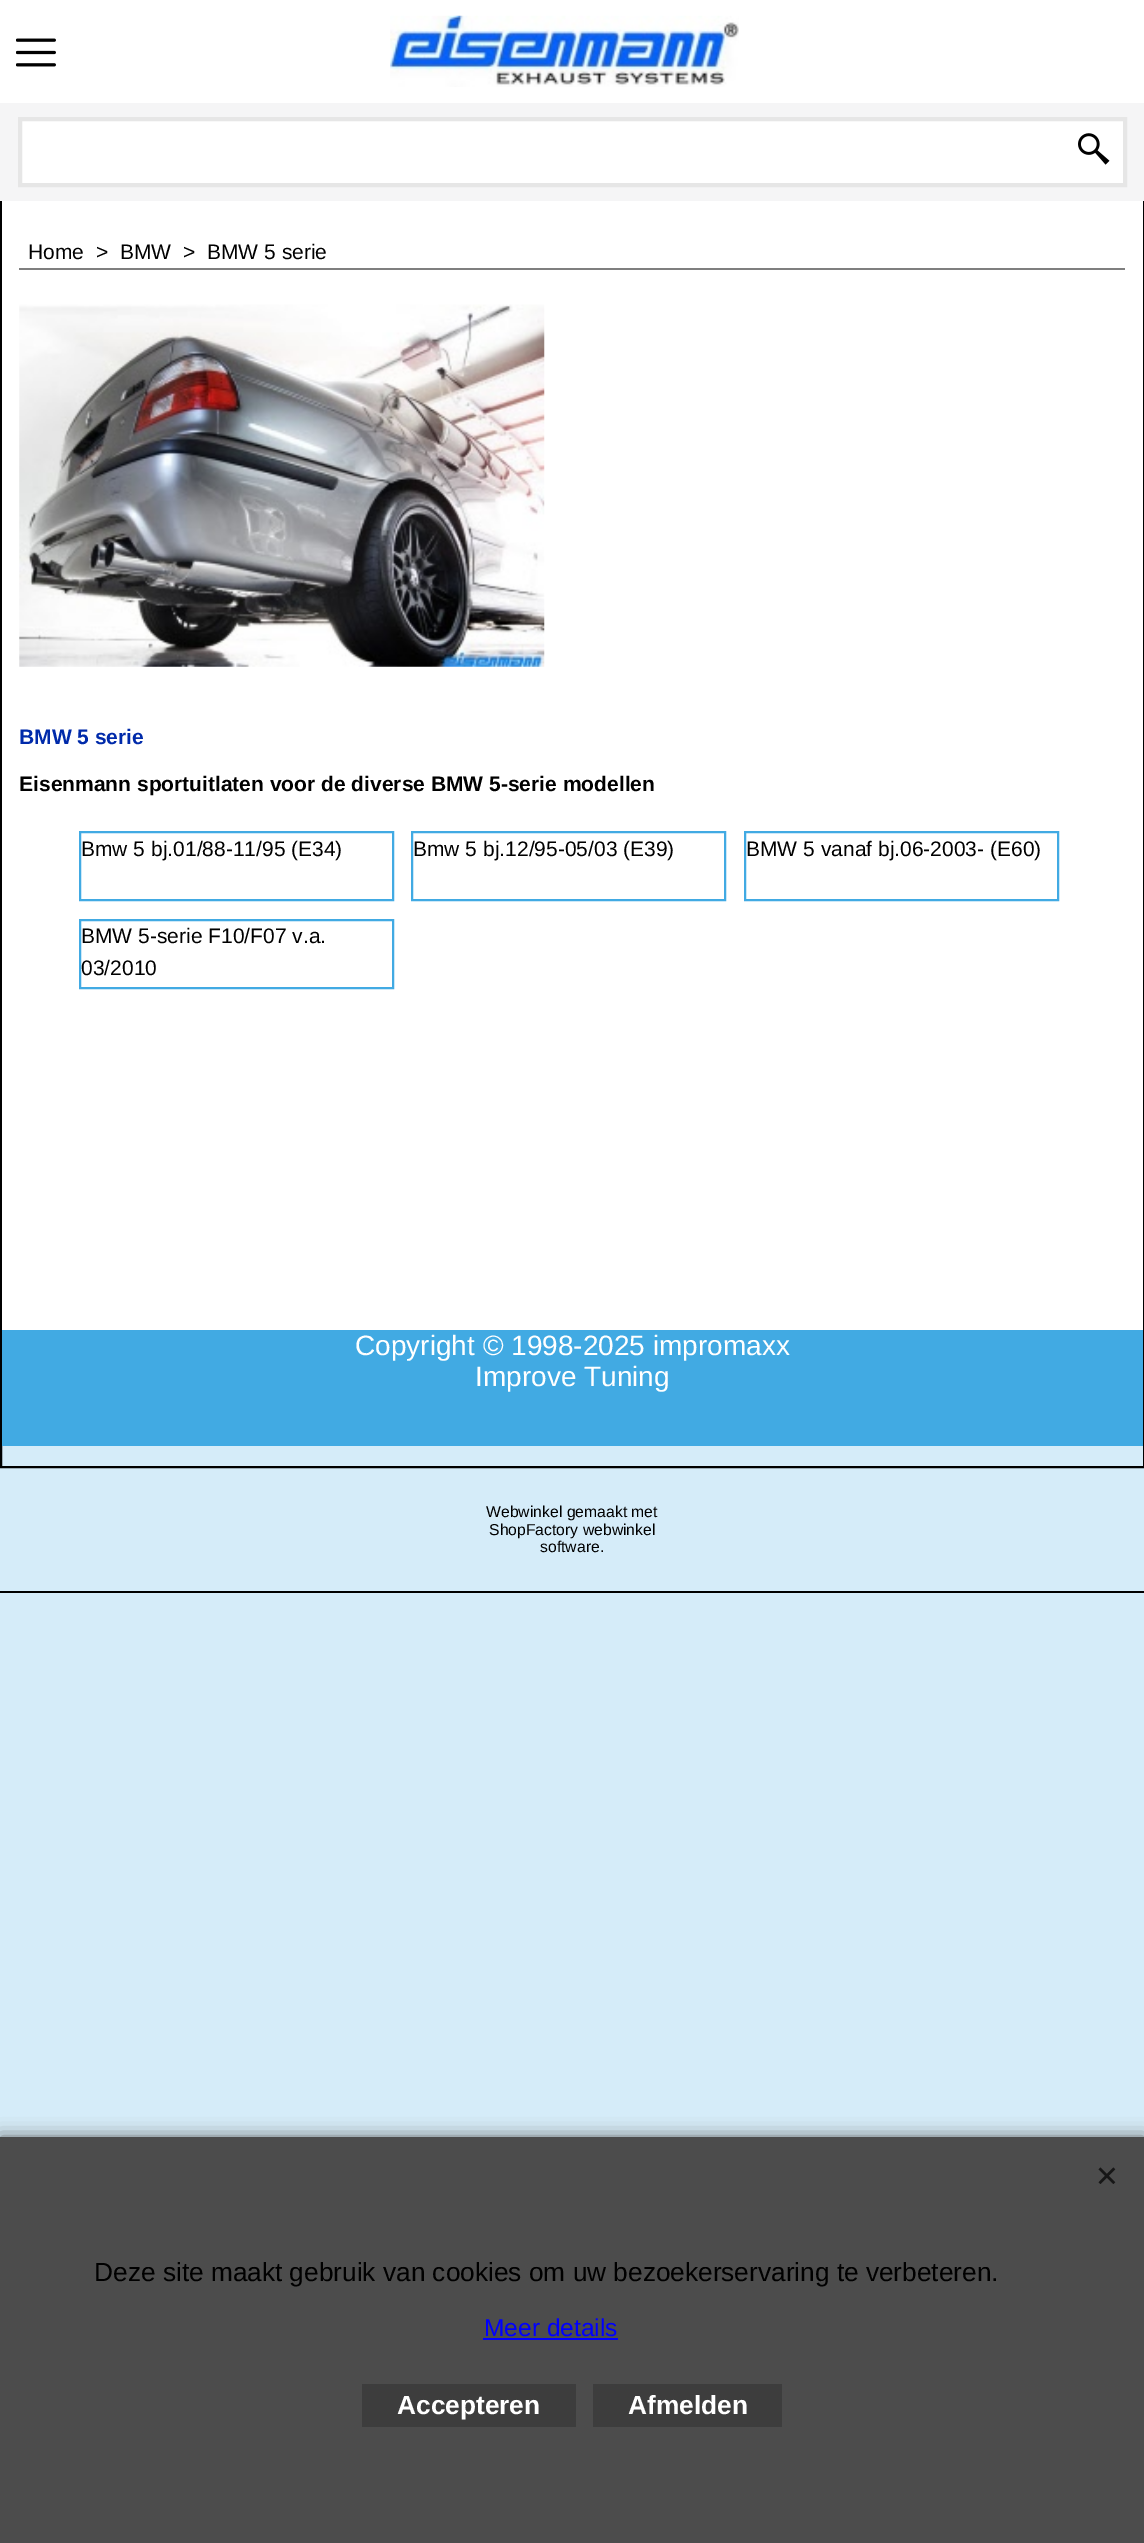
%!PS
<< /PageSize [1144 2543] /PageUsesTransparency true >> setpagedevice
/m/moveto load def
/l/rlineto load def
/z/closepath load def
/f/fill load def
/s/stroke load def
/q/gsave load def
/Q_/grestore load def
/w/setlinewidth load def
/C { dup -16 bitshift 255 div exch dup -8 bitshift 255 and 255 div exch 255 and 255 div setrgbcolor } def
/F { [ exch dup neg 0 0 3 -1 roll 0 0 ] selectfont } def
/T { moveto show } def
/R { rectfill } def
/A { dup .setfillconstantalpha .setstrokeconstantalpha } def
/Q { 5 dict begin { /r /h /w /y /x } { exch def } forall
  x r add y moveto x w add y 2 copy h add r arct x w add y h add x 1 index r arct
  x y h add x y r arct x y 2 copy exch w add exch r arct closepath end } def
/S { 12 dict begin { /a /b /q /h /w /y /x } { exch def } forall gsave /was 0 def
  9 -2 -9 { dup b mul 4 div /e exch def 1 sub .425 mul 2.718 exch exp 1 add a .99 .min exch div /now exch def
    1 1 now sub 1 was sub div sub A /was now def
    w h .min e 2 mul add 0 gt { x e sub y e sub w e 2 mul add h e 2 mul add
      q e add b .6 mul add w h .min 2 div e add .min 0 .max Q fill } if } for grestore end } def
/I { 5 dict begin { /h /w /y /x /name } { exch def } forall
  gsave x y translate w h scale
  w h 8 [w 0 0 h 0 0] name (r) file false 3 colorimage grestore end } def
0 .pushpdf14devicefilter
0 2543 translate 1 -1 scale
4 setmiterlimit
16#D5ECF9 C
0 0 1144 2543 R
16#FFFFFF C
0 0 1144 103 R
(1.rgb) 16 38 40 29 I
(2.rgb) 390 15 349 72 I
16#000000 C
2 w
1 104 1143 1363 rectstroke
16#F5F5F6 C
0 103 1144 98 R
16#FFFFFF C
20 119 m 1105 0 l 0 66 l -1105 0 l z q f Q_
16#E6E6E6 C
4 w
s
(3.rgb) 1078 133 32 32 I
16#FFFFFF C
2 201 1141 1129 R
16#7F7F7F C
19 268 1106 2 R
/LiberationSans-Regular 21 F
16#000000 C
(Home) 28 259 T
(>) 96 259 T
(BMW) 120 259 T
(>) 183 259 T
(BMW 5 serie) 207 259 T
(4.rgb) 19 304 526 363 I
/LiberationSans-Bold 21 F
16#002AAA C
(BMW 5 serie) 19 744 T
16#000000 C
(Eisenmann sportuitlaten voor de diverse BMW 5-serie modellen) 19 791 T
16#41AAE3 C
2 w
80 832 313 68 rectstroke
/LiberationSans-Regular 21 F
16#000000 C
(Bmw 5 bj.01/88-11/95 \(E34\)) 81 856 T
16#41AAE3 C
412 832 313 68 rectstroke
16#000000 C
(Bmw 5 bj.12/95-05/03 \(E39\)) 413 856 T
16#41AAE3 C
745 832 313 68 rectstroke
16#000000 C
(BMW 5 vanaf bj.06-2003- \(E60\)) 746 856 T
16#41AAE3 C
80 920 313 68 rectstroke
16#000000 C
(BMW 5-serie F10/F07 v.a.) 81 943 T
(03/2010) 81 975 T
16#41AAE3 C
2 1330 1141 116 R
/LiberationSans-Regular 28 F
16#FFFFFF C
(Copyright © 1998-2025 impromaxx) 355 1355 T
(Improve Tuning) 475 1386 T
/LiberationSans-Regular 15.75 F
16#000000 C
(Webwinkel gemaakt met) 486 1517 T
(ShopFactory webwinkel) 489 1535 T
(software.) 540 1552 T
0 1591 1144 2 R
16#666666 C
0 2137 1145 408 0 9 1 S
16#4C4C4C C
0 2137 1144 406 R
(5.rgb) 1098 2167 18 17 I
/LiberationSans-Regular 26.25 F
16#000000 C
(Deze site maakt gebruik van cookies om uw bezoekerservaring te verbeteren.) 94 2281 T
/LiberationSans-Regular 24.5 F
16#0000FF C
(Meer details) 484 2336 T
483 2338 135 2 R
16#3D3D3D C
362 2384 214 43 R
/LiberationSans-Bold 26.25 F
16#FFFFFF C
(Accepteren) 397 2414 T
16#3D3D3D C
593 2384 189 43 R
16#FFFFFF C
(Afmelden) 628 2414 T
.poppdf14devicefilter showpage
